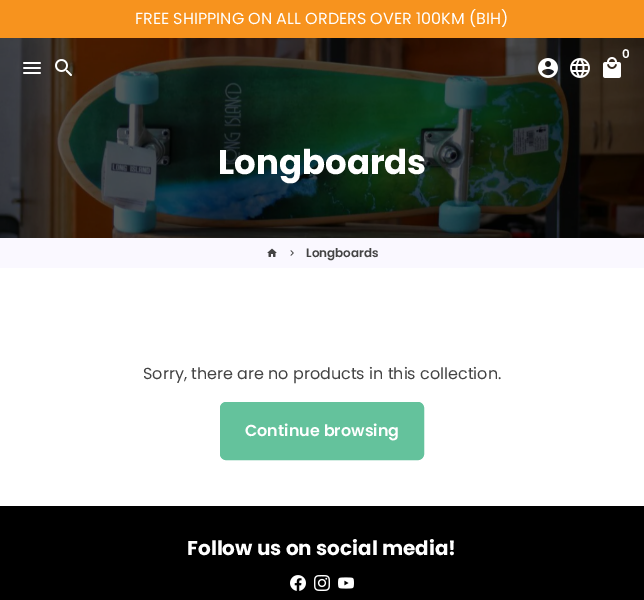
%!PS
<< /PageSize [644 600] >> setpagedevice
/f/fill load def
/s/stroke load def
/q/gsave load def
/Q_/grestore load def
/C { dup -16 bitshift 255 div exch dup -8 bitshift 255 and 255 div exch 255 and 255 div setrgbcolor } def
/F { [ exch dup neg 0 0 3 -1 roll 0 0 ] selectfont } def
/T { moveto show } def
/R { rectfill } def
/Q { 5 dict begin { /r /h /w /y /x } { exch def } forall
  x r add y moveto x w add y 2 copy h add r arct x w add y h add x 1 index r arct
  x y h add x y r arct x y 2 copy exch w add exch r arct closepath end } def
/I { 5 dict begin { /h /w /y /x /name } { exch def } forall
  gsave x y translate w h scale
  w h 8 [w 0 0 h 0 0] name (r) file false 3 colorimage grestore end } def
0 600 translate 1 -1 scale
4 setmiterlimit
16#FFFFFF C
0 0 644 600 R
16#F7931E C
0 0 644 38 R
/Poppins-Regular 16 F
16#FFFFFF C
(FREE SHIPPING ON ALL ORDERS OVER 100KM \(BIH\)) 135 24 T
(6.rgb) 0 38 644 200 I
/Poppins-SemiBold 12 F
(0) 622 58 T
(1.rgb) 603 57 18 21 I
(2.rgb) 538 58 20 20 I
(3.rgb) 570 58 20 20 I
(4.rgb) 23 62 18 12 I
(5.rgb) 55 59 17 17 I
/Poppins-Bold 34 F
(Longboards) 218 174 T
16#FAF8FF C
0 238 644 30 R
(7.rgb) 267 248 10 9 I
(8.rgb) 290 250 4 6 I
/Poppins-SemiBold 12 F
16#444444 C
(Longboards) 306 257 T
/Poppins-Regular 16 F
(Sorry, there are no products in this collection.) 143 379 T
16#64C29C C
220.5 402.5 203 57 5.5 Q q f Q_
s
/Poppins-SemiBold 16 F
16#FFFFFF C
(Continue browsing) 245 436 T
16#000000 C
0 506 644 94 R
/Poppins-Bold 20 F
16#FFFFFF C
(Follow us on social media!) 187 555 T
(9.rgb) 290 575 16 16 I
(10.rgb) 314 575 16 16 I
(11.rgb) 338 577 16 12 I
showpage
